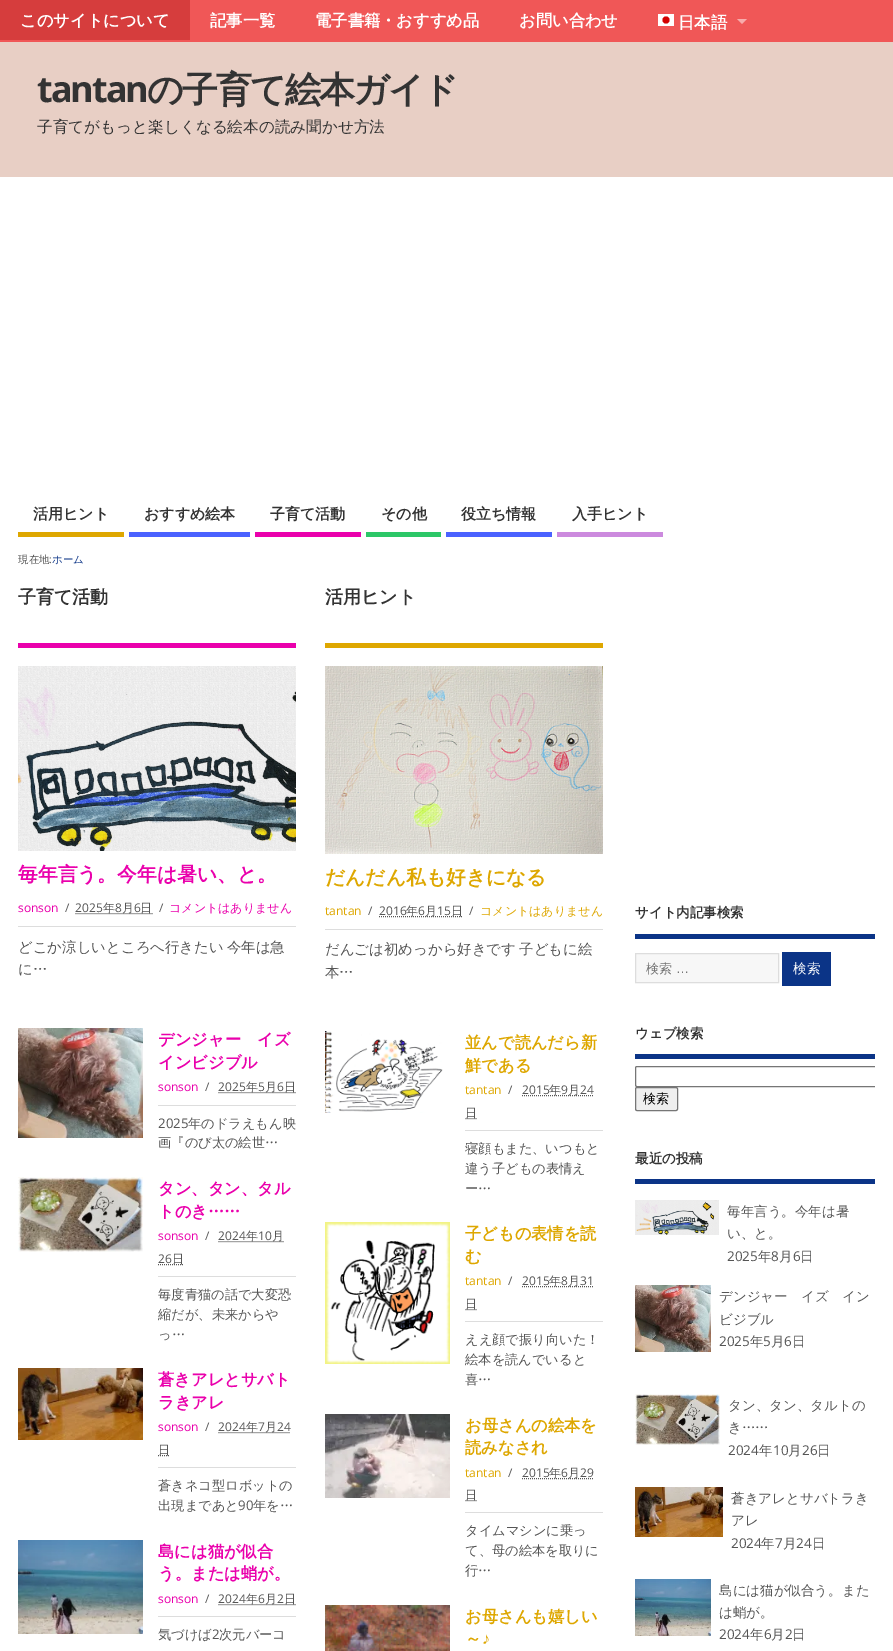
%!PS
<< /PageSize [893 1651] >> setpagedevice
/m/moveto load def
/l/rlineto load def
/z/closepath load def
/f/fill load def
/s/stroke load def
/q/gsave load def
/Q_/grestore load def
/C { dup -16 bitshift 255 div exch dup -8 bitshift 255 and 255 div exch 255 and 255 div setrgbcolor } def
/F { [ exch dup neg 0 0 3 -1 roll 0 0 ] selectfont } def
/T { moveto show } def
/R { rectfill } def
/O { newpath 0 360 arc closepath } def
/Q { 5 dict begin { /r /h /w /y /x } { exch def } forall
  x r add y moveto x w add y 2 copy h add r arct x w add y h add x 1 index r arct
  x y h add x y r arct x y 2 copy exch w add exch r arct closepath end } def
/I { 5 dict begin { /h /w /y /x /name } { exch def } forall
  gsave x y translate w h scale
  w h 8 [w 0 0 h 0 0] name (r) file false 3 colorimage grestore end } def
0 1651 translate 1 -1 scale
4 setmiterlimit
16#FFFFFF C
0 0 893 1651 R
16#F05757 C
0 0 893 42 R
16#D63D3D C
0 0 190 40 R
/WenQuanYiZenHei-Bold 16.25 F
16#FFFFFF C
(このサイトについて) 20 26 T
(記事一覧) 210 26 T
(電子書籍・おすすめ品) 315 26 T
(お問い合わせ) 519 26 T
658 14 16 12 R
(日本語) 678 28 T
16#D30000 C
666 20 3.5 O f
16#F8ABAB C
737 19 m 10 0 l -5 5 l z f
16#E8CFC5 C
0 42 893 135 R
/OpenSans-Bold 36 F
16#333333 C
37 102 m -2 0 (tantan) ashow
/WenQuanYiZenHei-Bold 36 F
147 102 m -2 0 (の子育て絵本ガイド) ashow
/WenQuanYiZenHei-Medium 15.6 F
(子育てがもっと楽しくなる絵本の読み聞かせ方法) 37 132 T
16#DEA700 C
18 532 106 5 R
/WenQuanYiZenHei-Bold 15 F
16#333333 C
(活用ヒント) 33 519 T
16#4A62FF C
129 532 121 5 R
16#333333 C
(おすすめ絵本) 144 519 T
16#EA00AC C
255 532 106 5 R
16#333333 C
(子育て活動) 270 519 T
16#2CC767 C
366 532 75 5 R
16#333333 C
(その他) 381 519 T
16#4A62FF C
446 532 106 5 R
16#333333 C
(役立ち情報) 461 519 T
16#CC8ADE C
557 532 106 5 R
16#333333 C
(入手ヒント) 572 519 T
/WenQuanYiZenHei-Medium 10.5 F
16#555555 C
(現在地) 18 563 T
/OpenSans-Regular 10.5 F
(:) 49 563 T
/WenQuanYiZenHei-Medium 10.5 F
16#0B3487 C
(ホーム) 52 563 T
16#EA00AC C
18 643 278 5 R
/WenQuanYiZenHei-Bold 18 F
16#333333 C
(子育て活動) 18 603 T
(1.rgb) 18 666 278 185 I
/WenQuanYiZenHei-Bold 19.75 F
16#EA00AC C
(毎年言う。今年は暑い、と。) 18 881 T
16#DDDDDD C
18 926 278 1 R
/OpenSans-Regular 12 F
16#EA00AC C
(sonson) 18 912 T
16#555555 C
(/) 65 912 T
(2025) 75 912 T
[1 1] 0 setdash
75.5 913.5 m 77 0 l s
/WenQuanYiZenHei-Medium 12 F
(年) 103 912 T
/OpenSans-Regular 12 F
(8) 115 912 T
/WenQuanYiZenHei-Medium 12 F
(月) 122 912 T
/OpenSans-Regular 12 F
(6) 134 912 T
/WenQuanYiZenHei-Medium 12 F
(日) 140 912 T
/OpenSans-Regular 12 F
(/) 159 912 T
/WenQuanYiZenHei-Medium 12 F
16#EA00AC C
(コメントはありません) 169 912 T
/WenQuanYiZenHei-Medium 14.4 F
16#555555 C
18 952 m -1 0 32 (どこか涼しいところへ行きたい 今年は急) widthshow
(に…) 18 974 T
(2.rgb) 18 1028 125 110 I
/WenQuanYiZenHei-Bold 16.25 F
16#EA00AC C
(デンジャー　イズ) 158 1045 T
(インビジブル) 158 1068 T
16#DDDDDD C
158 1105 138 1 R
/OpenSans-Regular 12 F
16#EA00AC C
(sonson) 158 1091 T
16#555555 C
(/) 205 1091 T
(2025) 218 1091 T
218.5 1092.5 m 77 0 l s
/WenQuanYiZenHei-Medium 12 F
(年) 246 1091 T
/OpenSans-Regular 12 F
(5) 258 1091 T
/WenQuanYiZenHei-Medium 12 F
(月) 265 1091 T
/OpenSans-Regular 12 F
(6) 277 1091 T
/WenQuanYiZenHei-Medium 12 F
(日) 284 1091 T
/OpenSans-Regular 13.25 F
(2025) 158 1128 T
/WenQuanYiZenHei-Medium 13.25 F
(年のドラえもん映) 188 1128 T
(画『のび太の絵世…) 158 1147 T
(3.rgb) 18 1177 125 75 I
/WenQuanYiZenHei-Bold 16.25 F
16#EA00AC C
(タン、タン、タル) 158 1194 T
(トのき……) 158 1217 T
16#DDDDDD C
158 1276 138 1 R
/OpenSans-Regular 12 F
16#EA00AC C
(sonson) 158 1240 T
16#555555 C
(/) 205 1240 T
(2024) 218 1240 T
218.5 1241.5 m 65 0 l s
/WenQuanYiZenHei-Medium 12 F
(年) 246 1240 T
/OpenSans-Regular 12 F
(10) 258 1240 T
/WenQuanYiZenHei-Medium 12 F
(月) 272 1240 T
/OpenSans-Regular 12 F
(26) 158 1263 T
158 1264.5 m 25.5 0 l s
/WenQuanYiZenHei-Medium 12 F
(日) 172 1263 T
/WenQuanYiZenHei-Medium 13.25 F
(毎度青猫の話で大変恐) 158 1299 T
(縮だが、未来からや) 158 1319 T
(っ…) 158 1339 T
(4.rgb) 18 1368 125 72 I
/WenQuanYiZenHei-Bold 16.25 F
16#EA00AC C
(蒼きアレとサバト) 158 1385 T
(ラきアレ) 158 1408 T
16#DDDDDD C
158 1467 138 1 R
/OpenSans-Regular 12 F
16#EA00AC C
(sonson) 158 1431 T
16#555555 C
(/) 205 1431 T
(2024) 218 1431 T
218.5 1432.5 m 72 0 l s
/WenQuanYiZenHei-Medium 12 F
(年) 246 1431 T
/OpenSans-Regular 12 F
(7) 258 1431 T
/WenQuanYiZenHei-Medium 12 F
(月) 265 1431 T
/OpenSans-Regular 12 F
(24) 277 1431 T
158 1455.5 m 12 0 l s
/WenQuanYiZenHei-Medium 12 F
(日) 158 1454 T
/WenQuanYiZenHei-Medium 13.25 F
(蒼きネコ型ロボットの) 158 1490 T
(出現まであと) 158 1510 T
/OpenSans-Regular 13.25 F
(90) 238 1510 T
/WenQuanYiZenHei-Medium 13.25 F
(年を…) 253 1510 T
(5.rgb) 18 1540 125 94 I
/WenQuanYiZenHei-Bold 16.25 F
16#EA00AC C
(島には猫が似合) 158 1557 T
(う。または蛸が。) 158 1579 T
16#DDDDDD C
158 1616 138 1 R
/OpenSans-Regular 12 F
16#EA00AC C
(sonson) 158 1603 T
16#555555 C
(/) 205 1603 T
(2024) 218 1603 T
218.5 1604.5 m 77 0 l s
/WenQuanYiZenHei-Medium 12 F
(年) 246 1603 T
/OpenSans-Regular 12 F
(6) 258 1603 T
/WenQuanYiZenHei-Medium 12 F
(月) 265 1603 T
/OpenSans-Regular 12 F
(2) 277 1603 T
/WenQuanYiZenHei-Medium 12 F
(日) 284 1603 T
/WenQuanYiZenHei-Medium 13.25 F
(気づけば) 158 1639 T
/OpenSans-Regular 13.25 F
(2) 212 1639 T
/WenQuanYiZenHei-Medium 13.25 F
(次元バーコ) 219 1639 T
16#DEA700 C
325 643 278 5 R
/WenQuanYiZenHei-Bold 18 F
16#333333 C
(活用ヒント) 325 603 T
(6.rgb) 325 666 278 188 I
/WenQuanYiZenHei-Bold 19.75 F
16#DEA700 C
(だんだん私も好きになる) 325 884 T
16#DDDDDD C
325 929 278 1 R
/OpenSans-Regular 12 F
16#DEA700 C
(tantan) 325 915 T
16#555555 C
(/) 368 915 T
(2016) 379 915 T
379 916.5 m 84 0 l s
/WenQuanYiZenHei-Medium 12 F
(年) 406 915 T
/OpenSans-Regular 12 F
(6) 418 915 T
/WenQuanYiZenHei-Medium 12 F
(月) 425 915 T
/OpenSans-Regular 12 F
(15) 437 915 T
/WenQuanYiZenHei-Medium 12 F
(日) 451 915 T
/OpenSans-Regular 12 F
(/) 469 915 T
/WenQuanYiZenHei-Medium 12 F
16#DEA700 C
(コメントはありません) 480 915 T
/WenQuanYiZenHei-Medium 14.4 F
16#555555 C
325 954 m -1 0 32 (だんごは初めっから好きです 子どもに絵) widthshow
(本…) 325 977 T
(7.rgb) 325 1031 118 82 I
/WenQuanYiZenHei-Bold 16.25 F
16#DEA700 C
(並んで読んだら新) 465 1048 T
(鮮である) 465 1071 T
16#DDDDDD C
465 1130 138 1 R
/OpenSans-Regular 12 F
16#DEA700 C
(tantan) 465 1094 T
16#555555 C
(/) 508 1094 T
(2015) 522 1094 T
522 1095.5 m 72 0 l s
/WenQuanYiZenHei-Medium 12 F
(年) 549 1094 T
/OpenSans-Regular 12 F
(9) 561 1094 T
/WenQuanYiZenHei-Medium 12 F
(月) 568 1094 T
/OpenSans-Regular 12 F
(24) 580 1094 T
465.5 1118.5 m 12 0 l s
/WenQuanYiZenHei-Medium 12 F
(日) 465 1117 T
/WenQuanYiZenHei-Medium 13.25 F
(寝顔もまた、いつもと) 465 1153 T
(違う子どもの表情え) 465 1173 T
(ー…) 465 1193 T
(8.rgb) 325 1222 125 142 I
/WenQuanYiZenHei-Bold 16.25 F
16#DEA700 C
(子どもの表情を読) 465 1239 T
(む) 465 1262 T
16#DDDDDD C
465 1321 138 1 R
/OpenSans-Regular 12 F
16#DEA700 C
(tantan) 465 1285 T
16#555555 C
(/) 508 1285 T
(2015) 522 1285 T
522 1286.5 m 72 0 l s
/WenQuanYiZenHei-Medium 12 F
(年) 549 1285 T
/OpenSans-Regular 12 F
(8) 561 1285 T
/WenQuanYiZenHei-Medium 12 F
(月) 568 1285 T
/OpenSans-Regular 12 F
(31) 580 1285 T
465.5 1309.5 m 12 0 l s
/WenQuanYiZenHei-Medium 12 F
(日) 465 1308 T
/WenQuanYiZenHei-Medium 13.25 F
(ええ顔で振り向いた！) 465 1344 T
(絵本を読んでいると) 465 1364 T
(喜…) 465 1384 T
(9.rgb) 325 1414 125 84 I
/WenQuanYiZenHei-Bold 16.25 F
16#DEA700 C
(お母さんの絵本を) 465 1431 T
(読みなされ) 465 1453 T
16#DDDDDD C
465 1512 138 1 R
/OpenSans-Regular 12 F
16#DEA700 C
(tantan) 465 1477 T
16#555555 C
(/) 508 1477 T
(2015) 522 1477 T
522 1478.5 m 72 0 l s
/WenQuanYiZenHei-Medium 12 F
(年) 549 1477 T
/OpenSans-Regular 12 F
(6) 561 1477 T
/WenQuanYiZenHei-Medium 12 F
(月) 568 1477 T
/OpenSans-Regular 12 F
(29) 580 1477 T
465.5 1500.5 m 12 0 l s
/WenQuanYiZenHei-Medium 12 F
(日) 465 1499 T
/WenQuanYiZenHei-Medium 13.25 F
(タイムマシンに乗っ) 465 1535 T
(て、母の絵本を取りに) 465 1555 T
(行…) 465 1575 T
(10.rgb) 325 1605 125 46 I
/WenQuanYiZenHei-Bold 16.25 F
16#DEA700 C
(お母さんも嬉しい) 465 1622 T
(～) 465 1644 T
/LiberationSans-Bold 16.25 F
(♪) 482 1644 T
16#0B3487 C
635 934 240 5 R
/WenQuanYiZenHei-Bold 13.5 F
16#333333 C
(サイト内記事検索) 635 917 T
16#F7F7F7 C
635.5 953.5 m 143 0 l 0 29 l -143 0 l z q f Q_
16#DDDDDD C
[] 0 setdash
s
/WenQuanYiZenHei-Medium 13 F
16#757575 C
(検索) 646 973 T
/LiberationSans-Regular 13 F
(…) 676 973 T
16#0B3487 C
782 952 49 34 R
/WenQuanYiZenHei-Medium 13.5 F
16#FFFFFF C
(検索) 793 973 T
16#0B3487 C
635 1054 240 5 R
/WenQuanYiZenHei-Bold 13.5 F
16#333333 C
(ウェブ検索) 635 1038 T
q
635 585 240 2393 rectclip
16#767676 C
635.5 1066.5 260 20 1.5 Q s
Q_
16#EFEFEF C
635.5 1087.5 42 23 1.5 Q q f Q_
16#767676 C
s
/WenQuanYiZenHei-Medium 13 F
16#000000 C
(検索) 643 1103 T
16#0B3487 C
635 1179 240 5 R
/WenQuanYiZenHei-Bold 13.5 F
16#333333 C
(最近の投稿) 635 1163 T
(11.rgb) 635 1200 84 35 I
/WenQuanYiZenHei-Medium 13.5 F
16#555555 C
(毎年言う。今年は暑) 727 1216 T
(い、と。) 727 1238 T
/OpenSans-Regular 13.5 F
(2025) 727 1261 T
/WenQuanYiZenHei-Medium 13.5 F
(年) 758 1261 T
/OpenSans-Regular 13.5 F
(8) 771 1261 T
/WenQuanYiZenHei-Medium 13.5 F
(月) 779 1261 T
/OpenSans-Regular 13.5 F
(6) 793 1261 T
/WenQuanYiZenHei-Medium 13.5 F
(日) 800 1261 T
(12.rgb) 635 1285 76 67 I
(デンジャー　イズ　イン) 719 1301 T
(ビジブル) 719 1324 T
/OpenSans-Regular 13.5 F
(2025) 719 1346 T
/WenQuanYiZenHei-Medium 13.5 F
(年) 750 1346 T
/OpenSans-Regular 13.5 F
(5) 763 1346 T
/WenQuanYiZenHei-Medium 13.5 F
(月) 771 1346 T
/OpenSans-Regular 13.5 F
(6) 784 1346 T
/WenQuanYiZenHei-Medium 13.5 F
(日) 792 1346 T
(13.rgb) 635 1394 85 51 I
(タン、タン、タルトの) 728 1410 T
(き……) 728 1432 T
/OpenSans-Regular 13.5 F
(2024) 728 1455 T
/WenQuanYiZenHei-Medium 13.5 F
(年) 759 1455 T
/OpenSans-Regular 13.5 F
(10) 773 1455 T
/WenQuanYiZenHei-Medium 13.5 F
(月) 788 1455 T
/OpenSans-Regular 13.5 F
(26) 802 1455 T
/WenQuanYiZenHei-Medium 13.5 F
(日) 817 1455 T
(14.rgb) 635 1487 88 50 I
(蒼きアレとサバトラき) 731 1503 T
(アレ) 731 1525 T
/OpenSans-Regular 13.5 F
(2024) 731 1548 T
/WenQuanYiZenHei-Medium 13.5 F
(年) 761 1548 T
/OpenSans-Regular 13.5 F
(7) 775 1548 T
/WenQuanYiZenHei-Medium 13.5 F
(月) 783 1548 T
/OpenSans-Regular 13.5 F
(24) 796 1548 T
/WenQuanYiZenHei-Medium 13.5 F
(日) 812 1548 T
(15.rgb) 635 1579 76 57 I
(島には猫が似合う。また) 719 1595 T
(は蛸が。) 719 1617 T
/OpenSans-Regular 13.5 F
(2024) 719 1639 T
/WenQuanYiZenHei-Medium 13.5 F
(年) 750 1639 T
/OpenSans-Regular 13.5 F
(6) 764 1639 T
/WenQuanYiZenHei-Medium 13.5 F
(月) 771 1639 T
/OpenSans-Regular 13.5 F
(2) 785 1639 T
/WenQuanYiZenHei-Medium 13.5 F
(日) 792 1639 T
showpage
